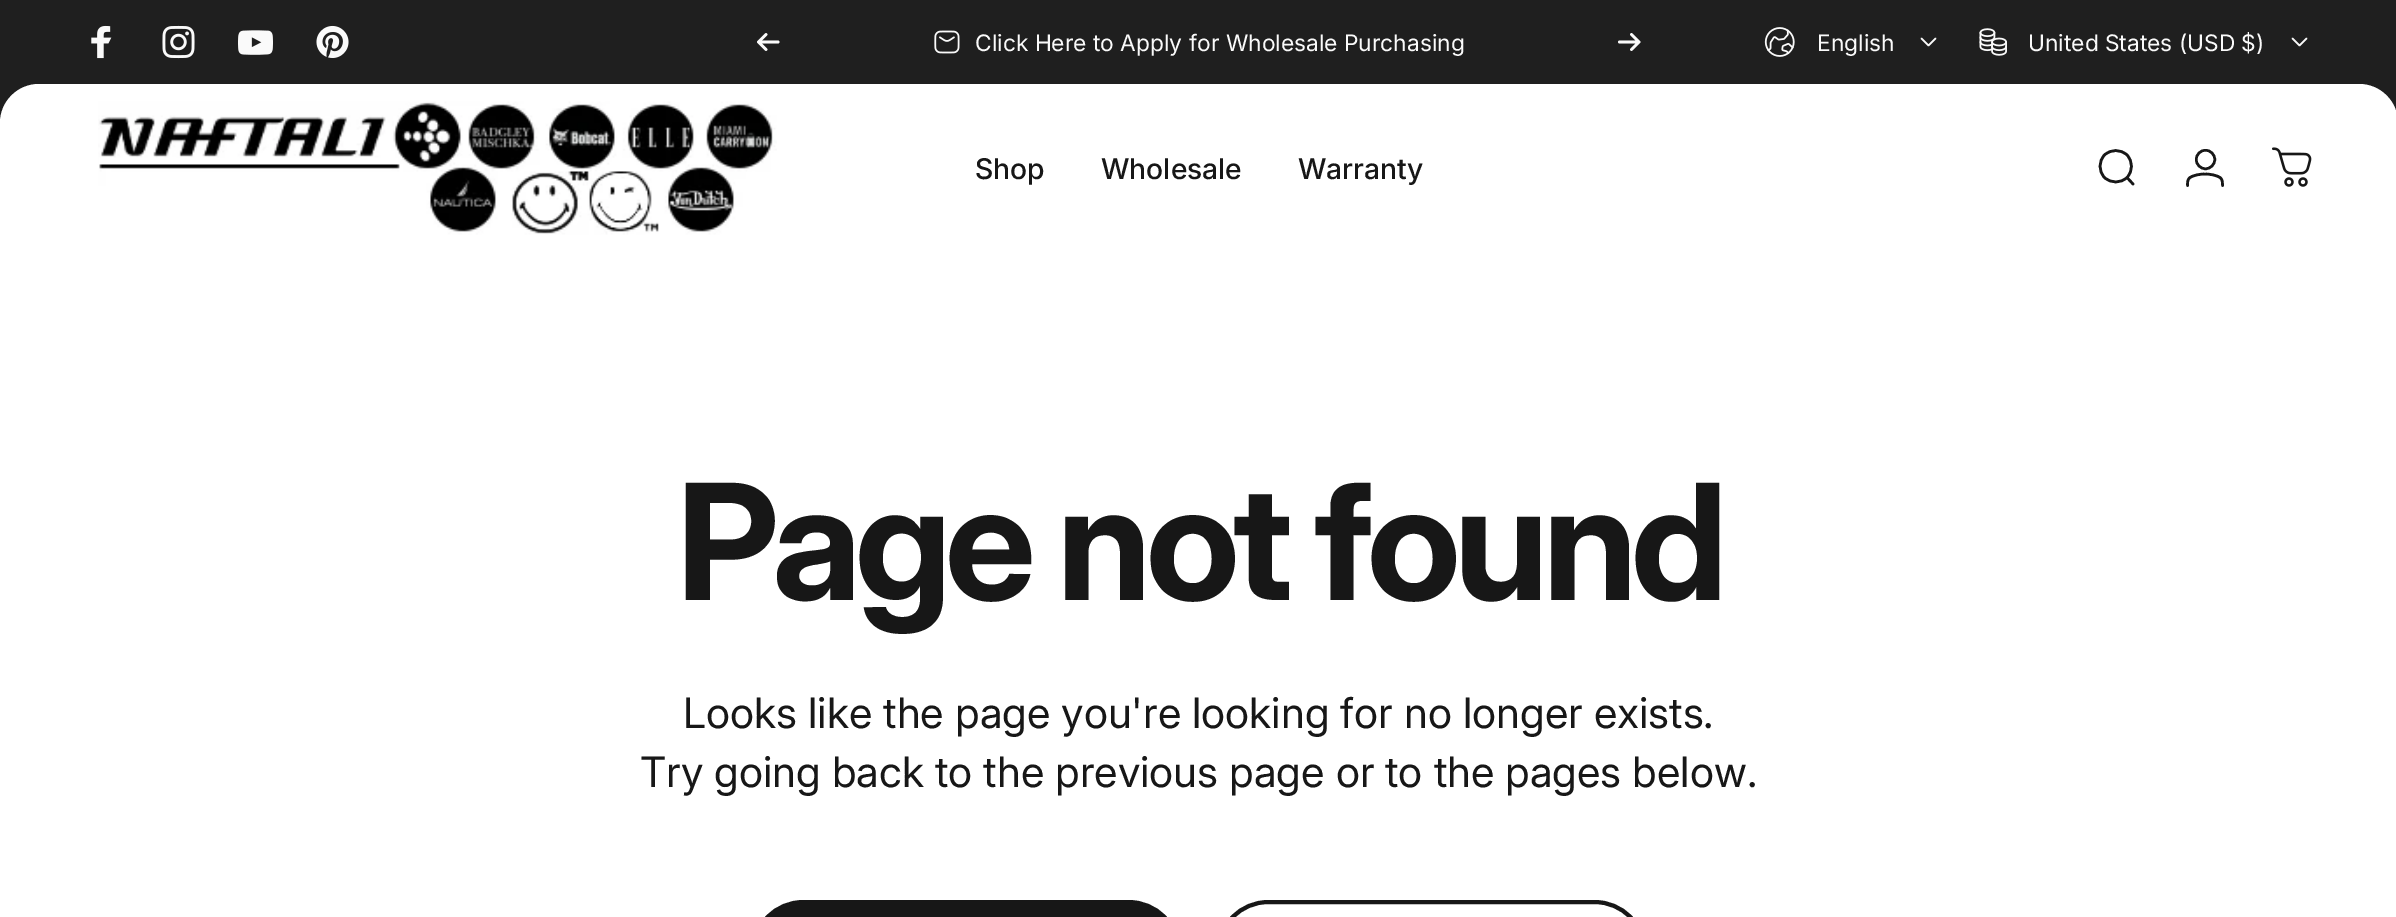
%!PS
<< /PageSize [2396 917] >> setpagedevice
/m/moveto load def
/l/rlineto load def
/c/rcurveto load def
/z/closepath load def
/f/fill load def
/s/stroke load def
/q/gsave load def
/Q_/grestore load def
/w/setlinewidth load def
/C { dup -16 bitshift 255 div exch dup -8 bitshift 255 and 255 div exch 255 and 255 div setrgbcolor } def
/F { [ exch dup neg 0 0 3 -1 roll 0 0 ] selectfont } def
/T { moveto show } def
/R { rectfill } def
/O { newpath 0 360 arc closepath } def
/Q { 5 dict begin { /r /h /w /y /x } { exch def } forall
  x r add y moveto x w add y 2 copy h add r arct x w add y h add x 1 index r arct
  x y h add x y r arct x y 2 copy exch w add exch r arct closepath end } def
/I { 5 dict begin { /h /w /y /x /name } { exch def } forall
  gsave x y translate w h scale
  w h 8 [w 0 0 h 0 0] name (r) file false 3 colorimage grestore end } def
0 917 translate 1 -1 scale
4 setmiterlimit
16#FFFFFF C
0 0 2396 917 R
16#1F1F1F C
0 0 2396 39 R
39 0 m 2320 0 l 21.5 0 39 17.5 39 39 c 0 84 l -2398 0 l 0 -84 l 0 -21.5 17.5 -39 39 -39 c z f
(1.rgb) 91 25 21 34 I
(2.rgb) 162 25 33 34 I
(3.rgb) 238 30 35 25 I
(4.rgb) 316 25 33 33 I
16#FAFAFA C
2.8 w
1 setlinecap
1 setlinejoin
766 34.5 m -7.5 7.5 l 758.5 42 m 7.5 7.5 l 758.5 42 m 19.5 0 l s
(5.rgb) 934 30 26 24 I
/Inter-Regular 22.75 F
(Click Here to Apply for Wholesale Purchasing) 975 51 T
1619.5 42 m 19.5 0 l 1639 42 m -7.5 -7.5 l 1639 42 m -7.5 7.5 l s
(6.rgb) 1764 27 31 30 I
(English) 1817 51 T
1.7 w
1921.5 38.5 m 7 7 l 7 -7 l s
(7.rgb) 1979 28 28 28 I
(United States \(USD $\)) 2028 51 T
2292.5 38.5 m 7 7 l 7 -7 l s
16#FFFFFF C
39 84 m 2320 0 l 21.5 0 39 17.5 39 39 c 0 129 l -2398 0 l 0 -129 l 0 -21.5 17.5 -39 39 -39 c z f
(8.rgb) 98 101 679 134 I
/Inter-Medium 28.5 F
16#171717 C
(Shop) 975 179 T
(Wholesale) 1101 179 T
(Warranty) 1298 179 T
2.6 w
0 setlinejoin
2133 184 m -6 -6.5 l 2127 177.5 m 6 -6.5 6 -16 0 -22.5 c -6.5 -6 -16 -6 -22.5 0 c -6 6.5 -6 16 0 22.5 c 6.5 6 16 6 22.5 0 c z s
2.5 w
0 setlinecap
2205.5 159.5 9.25 O s
2.6 w
1 setlinecap
2205 174 m 4 0 13 1 16 4.5 c 1.5 2 1.5 4.5 1.5 7 c 2205 174 m -4 0 -13 1 -16 4.5 c -1.5 2 -1.5 4.5 -1.5 7 c s
(9.rgb) 2272 147 40 40 I
/Inter-Bold 161.5 F
677 600 m -6.5 0 (Page not found) ashow
/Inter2-Regular 42 F
(Looks like the page you're looking for no longer exists.) 683 728 T
(Try going back to the previous page or to the pages below.) 640 787 T
753 902 426 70 50.5 Q q f Q_
4 w
0 setlinecap
s
1218 902 427 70 50.5 Q s
showpage
